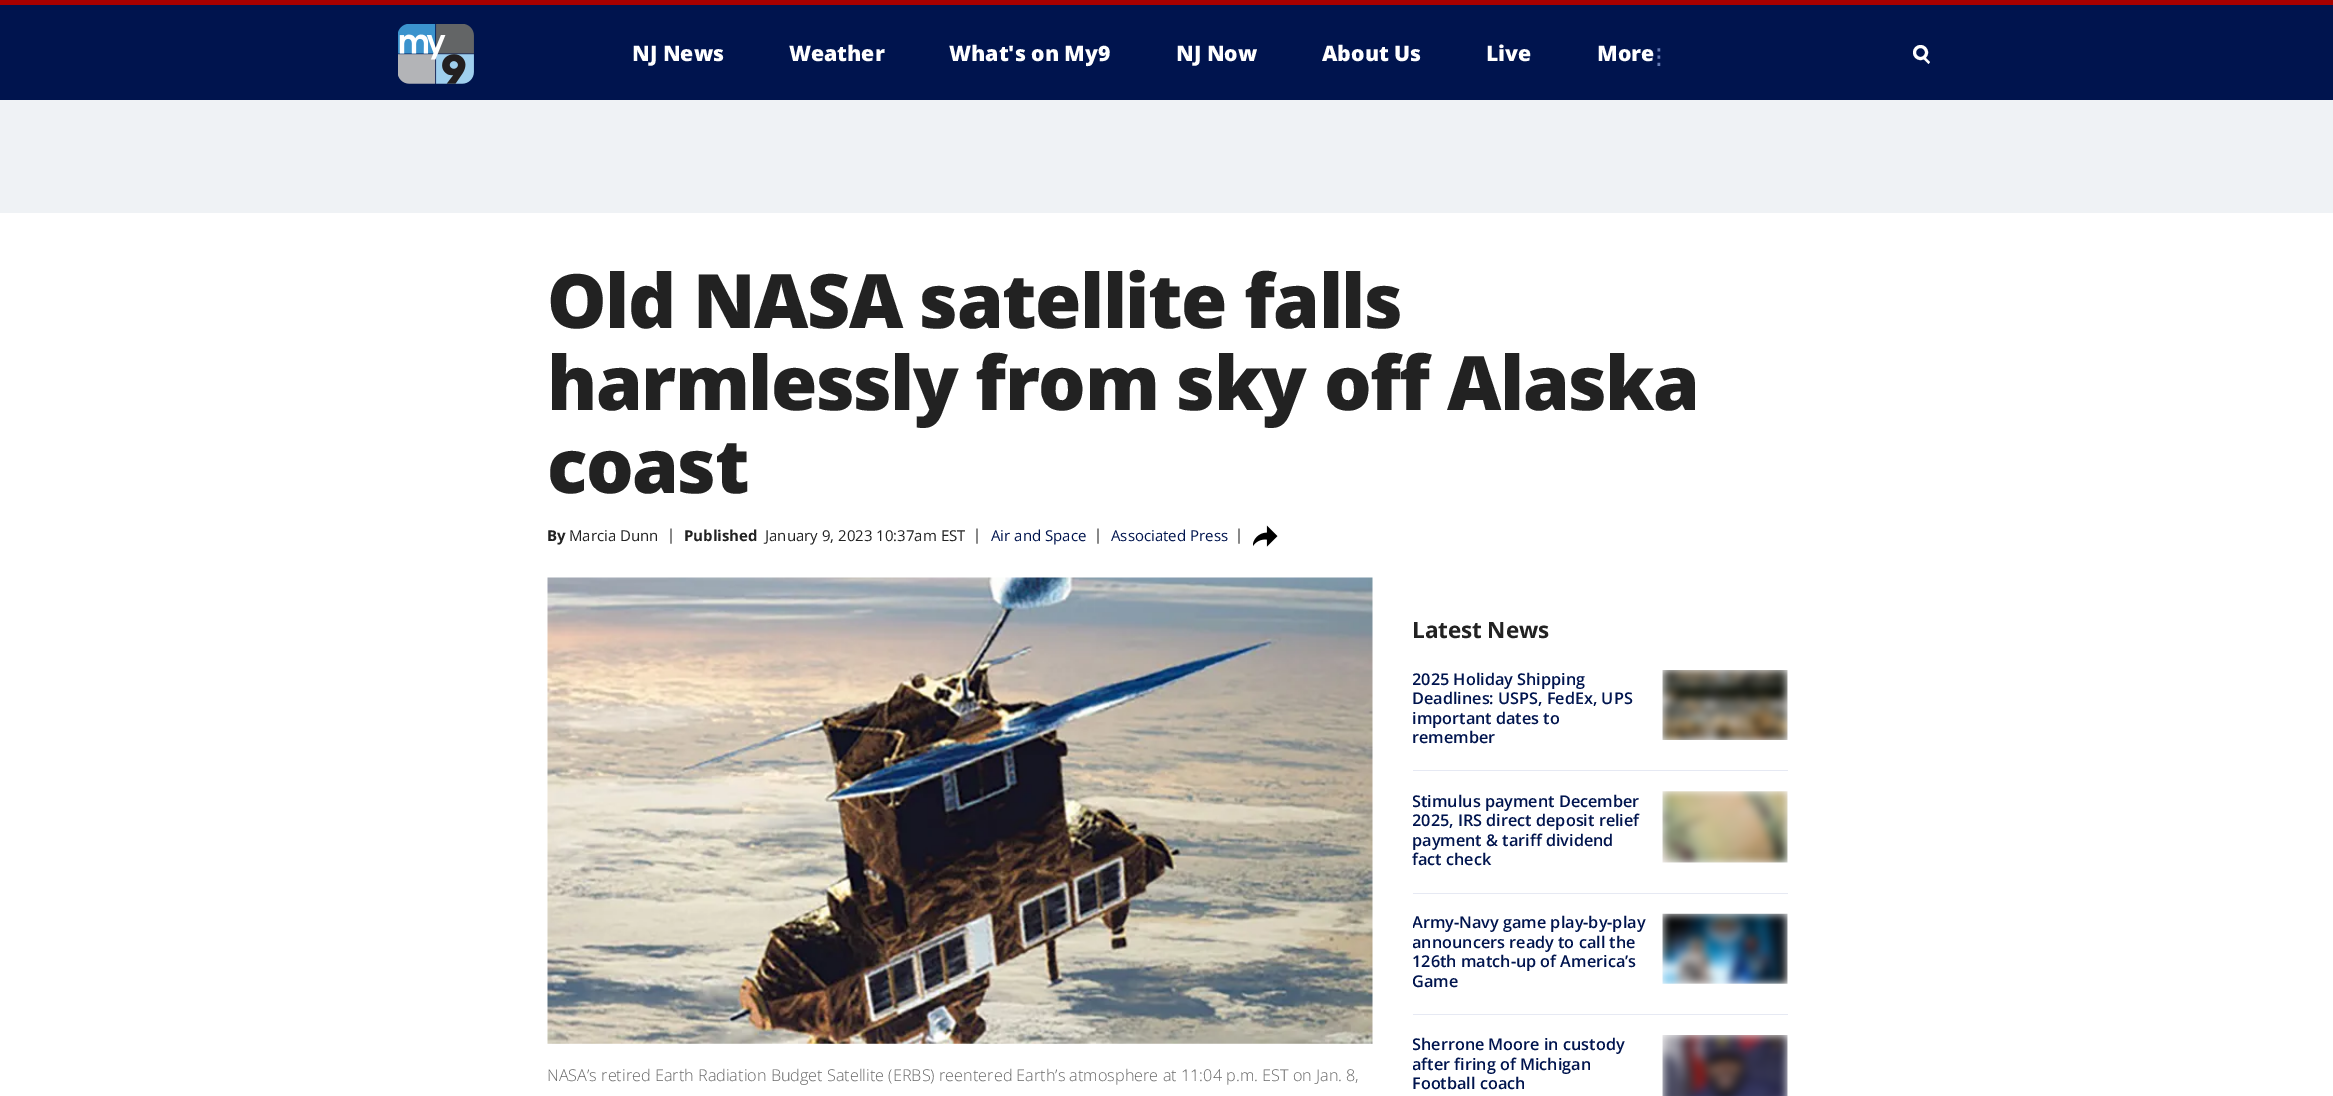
%!PS
<< /PageSize [2333 1096] >> setpagedevice
/m/moveto load def
/l/rlineto load def
/z/closepath load def
/f/fill load def
/s/stroke load def
/q/gsave load def
/Q_/grestore load def
/w/setlinewidth load def
/C { dup -16 bitshift 255 div exch dup -8 bitshift 255 and 255 div exch 255 and 255 div setrgbcolor } def
/F { [ exch dup neg 0 0 3 -1 roll 0 0 ] selectfont } def
/T { moveto show } def
/R { rectfill } def
/O { newpath 0 360 arc closepath } def
/I { 5 dict begin { /h /w /y /x /name } { exch def } forall
  gsave x y translate w h scale
  w h 8 [w 0 0 h 0 0] name (r) file false 3 colorimage grestore end } def
0 1096 translate 1 -1 scale
4 setmiterlimit
16#FFFFFF C
0 0 2333 1096 R
16#00144E C
0 5 2333 95 R
16#A70000 C
0 0 2333 5 R
(1.rgb) 398 24 76 60 I
/OpenSans-ExtraBold 21.25 F
16#FFFFFF C
(NJ News) 632 61 T
(Weather) 789 61 T
(What's on My9) 949 61 T
(NJ Now) 1176 61 T
(About Us) 1322 61 T
(Live) 1486 61 T
(More) 1597 61 T
/DejaVuSans-Bold 21.25 F
16#667BB3 C
(⋮) 1648 64 T
16#FFFFFF C
3 w
1920.5 52.5 6 O s
1924 56 m 6 6 l -1.5 2 l -6 -6 l z f
16#EFF2F5 C
0 100 2333 113 R
/OpenSans-ExtraBold 75 F
16#222222 C
547 328 m -1.5 0 (Old NASA satellite falls) ashow
547 410 m -1.5 0 (harmlessly from sky off Alaska) ashow
547 493 m -1.5 0 (coast) ashow
/OpenSans-Bold 15 F
(By) 547 541 T
/OpenSans-Regular 15 F
(Marcia Dunn) 569 541 T
(|) 667 540 T
/OpenSans-Bold 15 F
(Published) 684 541 T
/OpenSans-Regular 15 F
(January 9, 2023 10:37am EST) 765 541 T
(|) 973 540 T
16#00144E C
(Air and Space) 991 541 T
16#222222 C
(|) 1094 540 T
16#00144E C
(Associated Press) 1111 541 T
16#222222 C
(|) 1235 540 T
(2.rgb) 1253 525 25 22 I
(3.rgb) 547 577 826 467 I
/OpenSans-Light 16.25 F
16#666666 C
(NASA’s retired Earth Radiation Budget Satellite \(ERBS\) reentered Earth’s atmosphere at 11:04 p.m. EST on Jan. 8,) 547 1081 T
/OpenSans-Bold 22.5 F
16#222222 C
1412 638 m -.1 0 (Latest News) ashow
16#E6E9F3 C
1413 770 375 1 R
q
1413 670 235 80 rectclip
/OpenSans-SemiBold 16.25 F
16#00144E C
(2025 Holiday Shipping) 1412 685 T
Q_
/OpenSans-SemiBold 16.25 F
16#00144E C
(Deadlines: USPS, FedEx, UPS) 1412 704 T
(important dates to) 1412 724 T
(remember) 1412 743 T
(4.rgb) 1662 670 126 70 I
16#E6E9F3 C
1413 893 375 1 R
q
1413 791 235 82 rectclip
16#00144E C
(Stimulus payment December) 1412 807 T
(2025, IRS direct deposit relief) 1412 826 T
Q_
16#00144E C
(payment & tariff dividend) 1412 846 T
(fact check) 1412 865 T
(5.rgb) 1662 791 126 72 I
16#E6E9F3 C
1413 1014 375 1 R
q
1413 914 235 80 rectclip
16#00144E C
(Army-Navy game play-by-play) 1412 928 T
(announcers ready to call the) 1412 948 T
Q_
16#00144E C
(126th match-up of America’s) 1412 967 T
(Game) 1412 987 T
(6.rgb) 1662 913 126 71 I
q
1413 1035 235 61 rectclip
(Sherrone Moore in custody) 1412 1050 T
(after firing of Michigan) 1412 1070 T
Q_
(Football coach) 1412 1089 T
(7.rgb) 1662 1035 126 61 I
showpage
